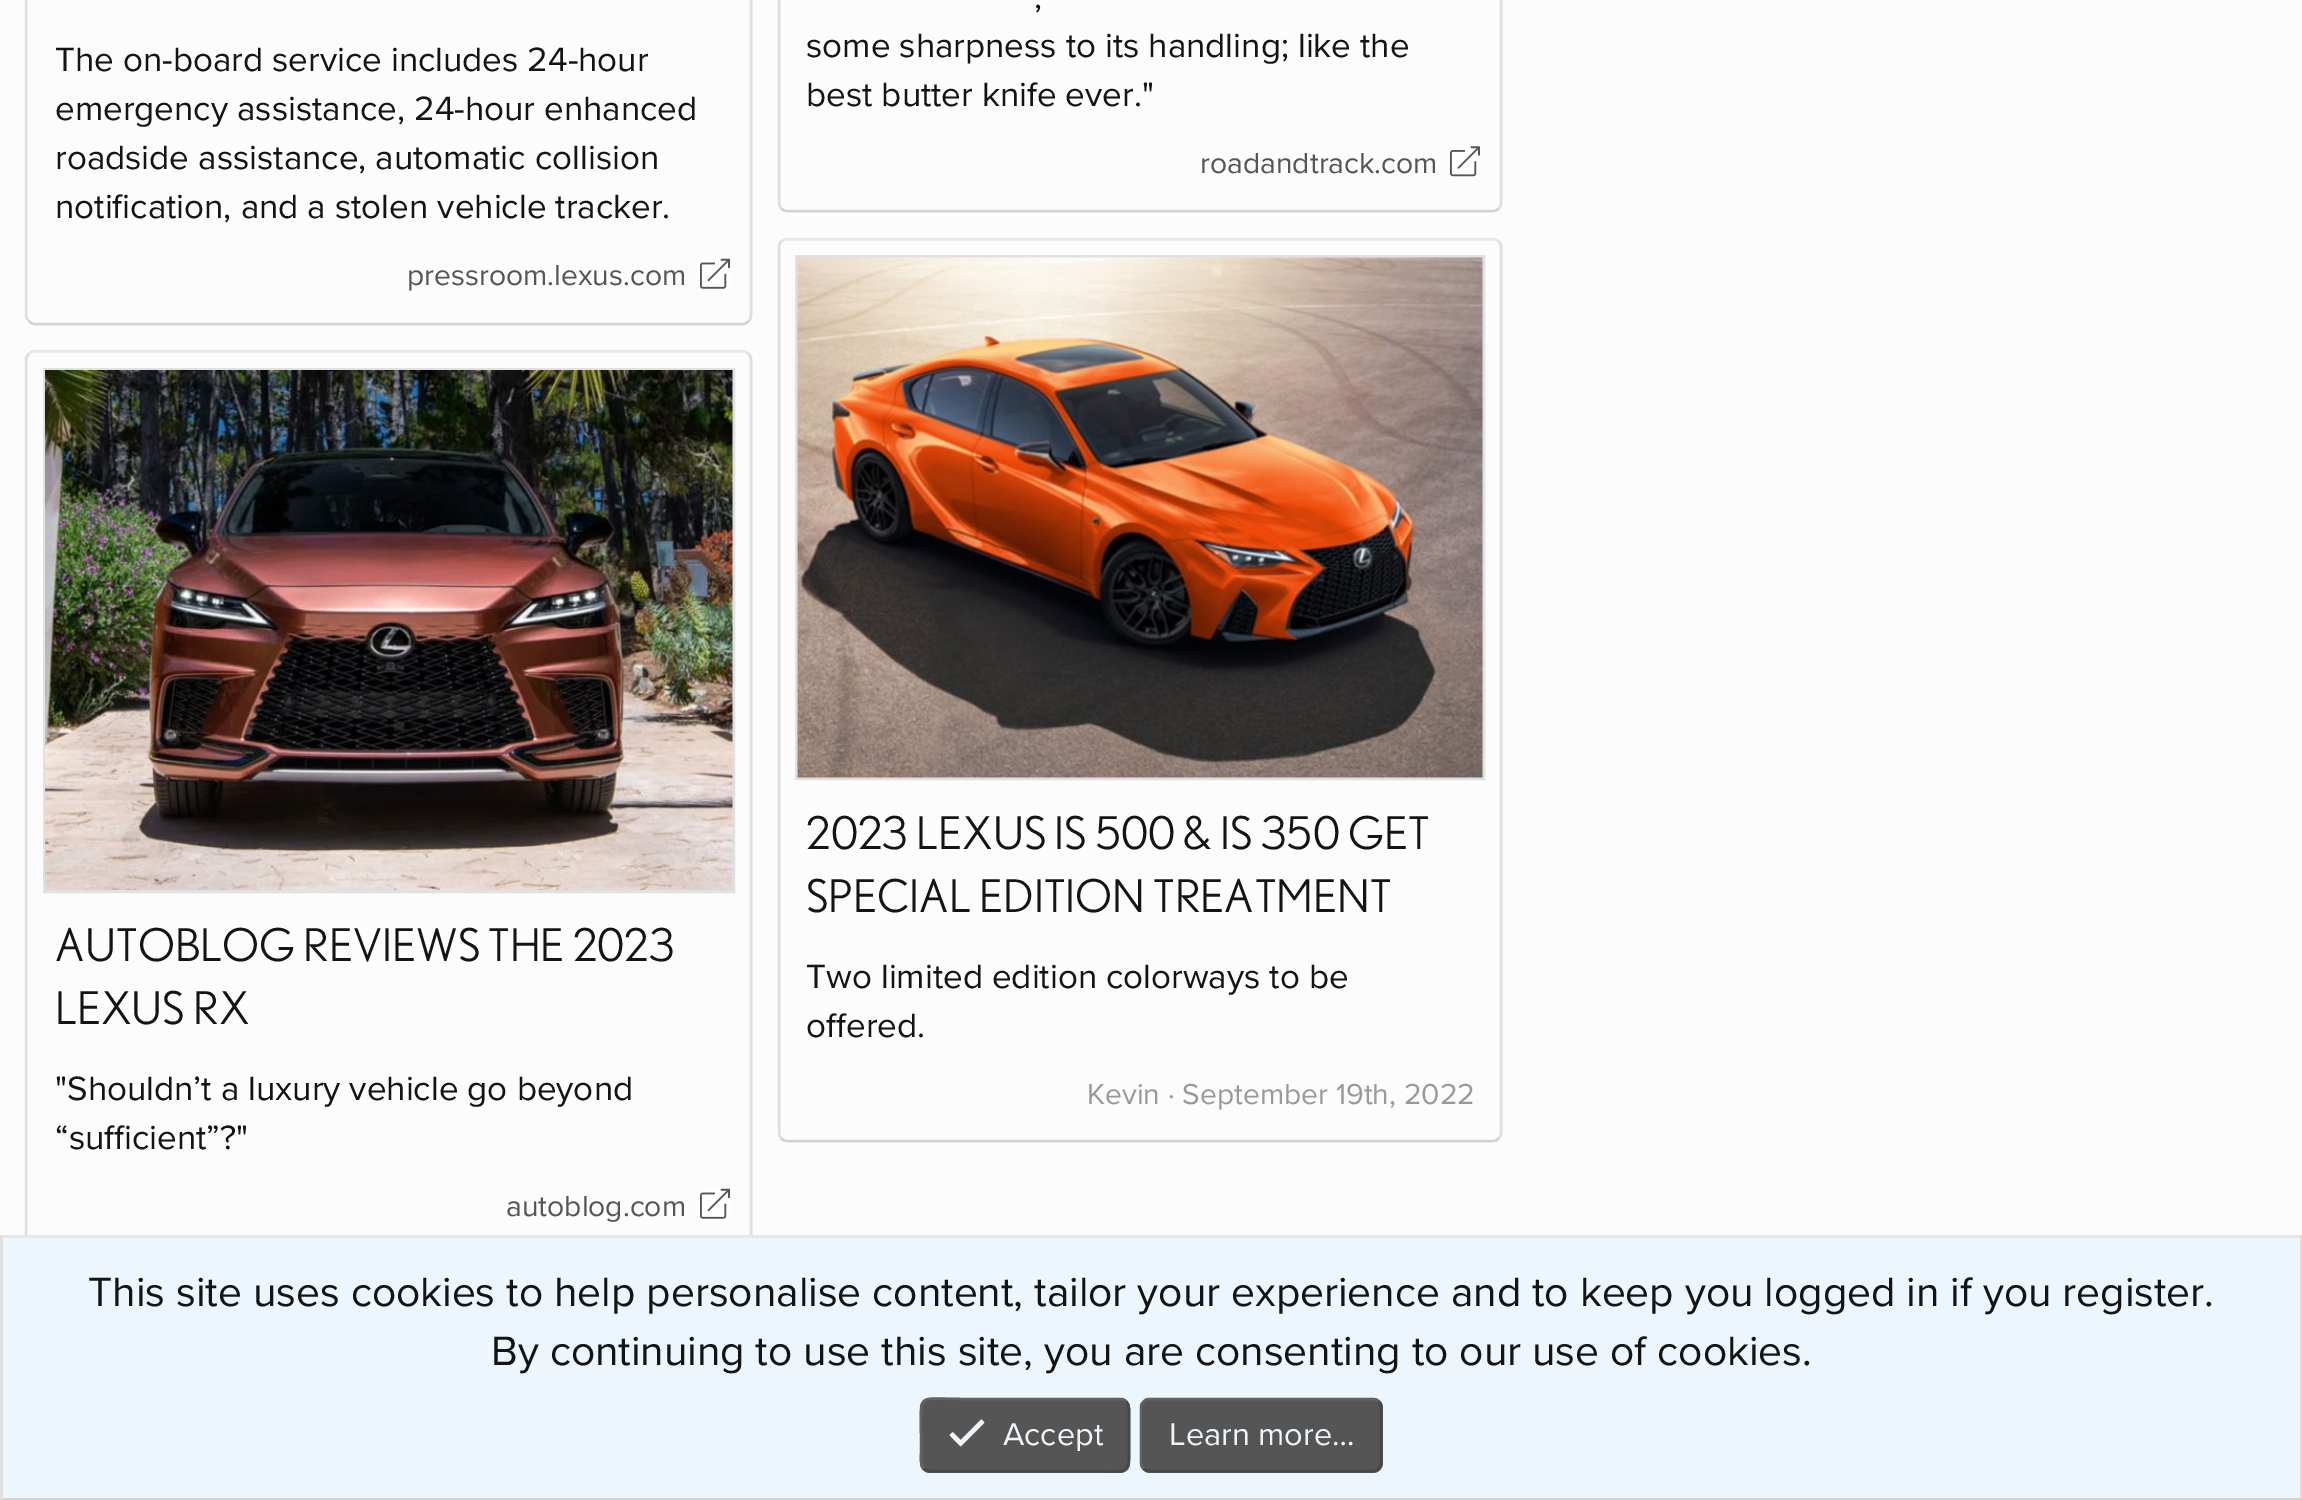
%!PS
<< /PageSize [2302 1500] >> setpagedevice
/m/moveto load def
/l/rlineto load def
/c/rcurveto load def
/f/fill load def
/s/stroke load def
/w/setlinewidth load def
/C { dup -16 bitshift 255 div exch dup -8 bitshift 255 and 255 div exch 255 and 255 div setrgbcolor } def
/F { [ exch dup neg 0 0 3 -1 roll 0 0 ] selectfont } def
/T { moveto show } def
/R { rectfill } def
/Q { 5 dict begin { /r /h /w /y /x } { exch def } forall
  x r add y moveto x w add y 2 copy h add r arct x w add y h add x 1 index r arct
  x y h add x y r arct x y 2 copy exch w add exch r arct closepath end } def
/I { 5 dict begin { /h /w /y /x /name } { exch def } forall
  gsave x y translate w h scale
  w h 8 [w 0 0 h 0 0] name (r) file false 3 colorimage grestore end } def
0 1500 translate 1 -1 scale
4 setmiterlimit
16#FCFCFC C
0 0 2302 1500 R
16#DFDFDF C
2.5 w
748.5 -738.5 m 2 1.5 2.5 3.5 2.5 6 c 0 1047.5 l 0 2.5 -.5 4.5 -2.5 6 c s
16#D3D3D3 C
748.5 321 m -1.5 2 -3.5 3 -6 3 c -707.5 0 l -2.5 0 -4.5 -1 -6 -3 c s
16#DFDFDF C
29 321 m -2 -1.5 -3 -3.5 -3 -6 c 0 -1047.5 l 0 -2.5 1 -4.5 3 -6 c s
/ProximaNova-Regular 35 F
16#141414 C
(The on-board service includes 24-hour) 55 71 T
(emergency assistance, 24-hour enhanced) 55 120 T
(roadside assistance, automatic collision) 55 169 T
(notification, and a stolen vehicle tracker.) 55 218 T
/ProximaNova-Regular 30 F
16#555555 C
(pressroom.lexus.com) 407 285 T
(1.rgb) 700 258 30 31 I
16#DFDFDF C
1498.5 -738.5 m 2 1.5 2.5 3.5 2.5 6 c 0 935 l 0 2.5 -.5 4.5 -2.5 6 c s
16#D3D3D3 C
1498.5 208.5 m -1.5 2 -3.5 2.5 -6 2.5 c -705 0 l -2.5 0 -4.5 -.5 -6 -2.5 c s
16#DFDFDF C
781.5 208.5 m -2 -1.5 -2.5 -3.5 -2.5 -6 c 0 -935 l 0 -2.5 .5 -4.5 2.5 -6 c s
/ProximaNova-Regular 35 F
16#141414 C
(,) 1034 8 T
(some sharpness to its handling; like the) 806 57 T
(best butter knife ever.") 806 106 T
/ProximaNova-Regular 30 F
16#555555 C
(roadandtrack.com) 1200 173 T
(2.rgb) 1450 146 30 31 I
16#E7E7E7 C
29 354 m 1.5 -2 3.5 -3 6 -3 c 707.5 0 l 2.5 0 4.5 1 6 3 c s
16#DFDFDF C
748.5 354 m 2 1.5 2.5 3.5 2.5 6 c 0 885 l 0 2.5 -.5 4.5 -2.5 6 c s
29 1251 m -2 -1.5 -3 -3.5 -3 -6 c 0 -885 l 0 -2.5 1 -4.5 3 -6 c s
16#E1E1E1 C
3 w
44.5 369.5 689 522 rectstroke
(3.rgb) 45 370 688 520 I
/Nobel-Regular 45 F
16#141414 C
(AUTOBLOG REVIEWS THE 2023) 55 961 T
(LEXUS RX) 55 1024 T
/ProximaNova-Regular 35 F
("Shouldn’t a luxury vehicle go beyond) 55 1100 T
(“sufficient”?") 55 1149 T
/ProximaNova-Regular 30 F
16#555555 C
(autoblog.com) 506 1216 T
(1.rgb) 700 1188 30 31 I
16#E7E7E7 C
2.5 w
781.5 241.5 m 1.5 -2 3.5 -2.5 6 -2.5 c 705 0 l 2.5 0 4.5 .5 6 2.5 c s
16#DFDFDF C
1498.5 241.5 m 2 1.5 2.5 3.5 2.5 6 c 0 885 l 0 2.5 -.5 4.5 -2.5 6 c s
16#D3D3D3 C
1498.5 1138.5 m -1.5 2 -3.5 2.5 -6 2.5 c -705 0 l -2.5 0 -4.5 -.5 -6 -2.5 c s
16#DFDFDF C
781.5 1138.5 m -2 -1.5 -2.5 -3.5 -2.5 -6 c 0 -885 l 0 -2.5 .5 -4.5 2.5 -6 c s
16#E1E1E1 C
3 w
796.5 256.5 687 522 rectstroke
(4.rgb) 797 257 686 521 I
/Nobel-Regular 45 F
16#141414 C
(2023 LEXUS IS 500 & IS 350 GET) 806 849 T
(SPECIAL EDITION TREATMENT) 806 912 T
/ProximaNova-Regular 35 F
(Two limited edition colorways to be) 806 988 T
(offered.) 806 1037 T
/ProximaNova-Regular 30 F
16#999999 C
(Kevin · September 19th, 2022) 1087 1104 T
16#EDF6FD C
3 1238 2297 260 R
16#E7E7E7 C
0 1235 2302 3 R
16#DFDFDF C
2300 1235 2 265 R
16#D3D3D3 C
0 1498 2302 2 R
16#DFDFDF C
0 1235 3 265 R
/ProximaNova-Regular 42.5 F
16#141414 C
(This site uses cookies to help personalise content, tailor your experience and to keep you logged in if you register.) 88 1306 T
(By continuing to use this site, you are consenting to our use of cookies.) 491 1365 T
16#555555 C
920 1398 210 75 10 Q f
16#484848 C
2.5 w
1126 1401.5 m 4 3.5 3 10.5 3 15 c 0 18.5 l 0 43 5 36 -40.5 36 c -158.5 0 l -2.5 0 -4.5 -.5 -6 -2.5 c s
16#626262 C
924 1468.5 m -4 -3.5 -3 -10.5 -3 -15 c 0 -18.5 l 0 -43 -5 -36 40.5 -36 c 158.5 0 l 2.5 0 4.5 .5 6 2.5 c s
(5.rgb) 949 1419 36 28 I
/ProximaNova-Regular 32.5 F
16#EDF6FD C
(Accept) 1003 1445 T
16#555555 C
1140 1398 243 75 10 Q f
16#484848 C
1378.5 1401.5 m 2 1.5 2.5 3.5 2.5 6 c 0 55 l 0 2.5 -.5 4.5 -2.5 6 c -1.5 2 -3.5 2.5 -6 2.5 c -222.5 0 l -2.5 0 -4.5 -.5 -6 -2.5 c s
16#626262 C
1144 1468.5 m -2 -1.5 -3 -3.5 -3 -6 c 0 -55 l 0 -2.5 1 -4.5 3 -6 c 1.5 -2 3.5 -2.5 6 -2.5 c 222.5 0 l 2.5 0 4.5 .5 6 2.5 c s
16#EDF6FD C
(Learn more…) 1169 1445 T
showpage
